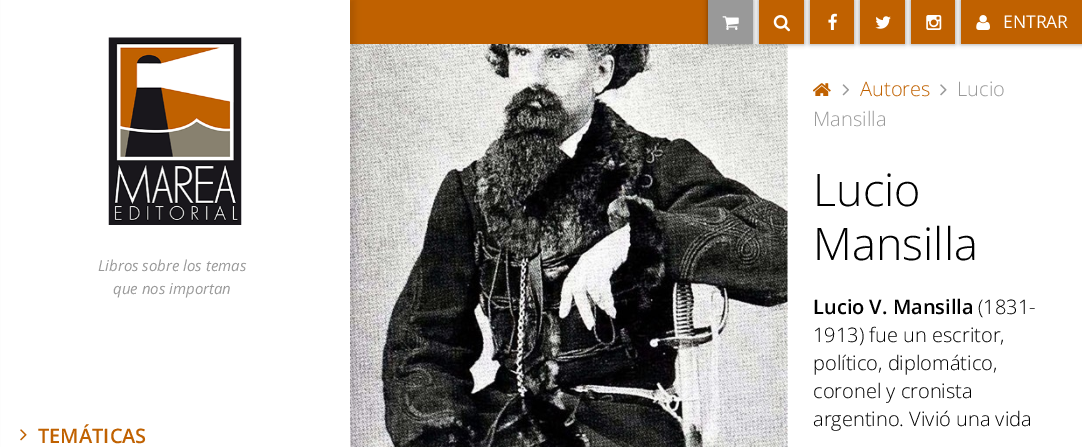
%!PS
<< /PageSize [1082 447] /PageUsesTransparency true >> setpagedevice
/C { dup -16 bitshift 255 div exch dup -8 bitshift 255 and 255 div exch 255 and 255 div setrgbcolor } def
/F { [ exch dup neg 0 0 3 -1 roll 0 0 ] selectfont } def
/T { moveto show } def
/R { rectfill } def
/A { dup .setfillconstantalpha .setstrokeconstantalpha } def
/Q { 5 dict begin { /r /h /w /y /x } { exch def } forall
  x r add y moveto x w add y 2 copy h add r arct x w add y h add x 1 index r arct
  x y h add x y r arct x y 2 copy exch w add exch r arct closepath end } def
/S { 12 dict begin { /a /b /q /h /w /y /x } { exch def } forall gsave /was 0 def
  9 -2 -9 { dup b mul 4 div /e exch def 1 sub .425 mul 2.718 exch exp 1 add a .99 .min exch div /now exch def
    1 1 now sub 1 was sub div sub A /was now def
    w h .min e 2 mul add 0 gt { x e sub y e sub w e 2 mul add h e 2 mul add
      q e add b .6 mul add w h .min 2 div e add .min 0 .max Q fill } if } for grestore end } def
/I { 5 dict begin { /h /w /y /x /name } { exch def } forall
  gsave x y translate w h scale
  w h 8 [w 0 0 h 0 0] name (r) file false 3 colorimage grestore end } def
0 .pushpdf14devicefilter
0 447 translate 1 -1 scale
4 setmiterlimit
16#FFFFFF C
0 0 1082 447 R
16#C06100 C
350 0 358 44 R
(9.rgb) 350 44 438 403 I
16#000000 C
708 0 45 44 0 2.5 .4 S
16#999999 C
708 0 45 44 R
(1.rgb) 722 16 17 14 I
16#000000 C
759 0 45 44 0 2.5 .4 S
16#C06100 C
759 0 45 44 R
(2.rgb) 773 15 17 17 I
16#000000 C
810 0 44 44 0 2.5 .4 S
16#C06100 C
810 0 44 44 R
(3.rgb) 828 13 9 17 I
16#000000 C
860 0 45 44 0 2.5 .4 S
16#C06100 C
860 0 45 44 R
(4.rgb) 875 16 16 13 I
16#000000 C
911 0 44 44 0 2.5 .4 S
16#C06100 C
911 0 44 44 R
(5.rgb) 926 15 16 15 I
16#000000 C
961 0 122 44 0 2.5 .4 S
16#C06100 C
961 0 121 44 R
(6.rgb) 976 15 14 15 I
/OpenSans-Regular 17.5 F
16#FFFFFF C
(ENTRAR) 1003 28 T
16#000000 C
5 0 350 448 0 3 .1 S
16#FFFFFF C
1 0 349 447 R
(7.rgb) 108 37 134 188 I
/OpenSans-Italic 15 F
16#999999 C
(Libros sobre los temas) 98 271 T
(que nos importan) 113 294 T
(8.rgb) 20 429 7 12 I
/OpenSans-SemiBold 20 F
16#C06100 C
(TEMÁTICAS) 38 443 T
(10.rgb) 813 83 18 13 I
(11.rgb) 842 84 7 12 I
/OpenSans-Light 20 F
(Autores) 860 96 T
(12.rgb) 940 84 7 12 I
16#999999 C
(Lucio) 957 96 T
(Mansilla) 813 126 T
/OpenSans-Light 45 F
16#000000 C
(Lucio) 813 206 T
(Mansilla) 813 260 T
/OpenSans-SemiBold 20 F
(Lucio V. Mansilla) 813 314 T
/OpenSans-Light 20 F
(\(1831-) 978 314 T
(1913\) fue un escritor,) 813 342 T
(político, diplomático,) 813 370 T
(coronel y cronista) 813 398 T
(argentino. Vivió una vida) 813 426 T
.poppdf14devicefilter showpage
